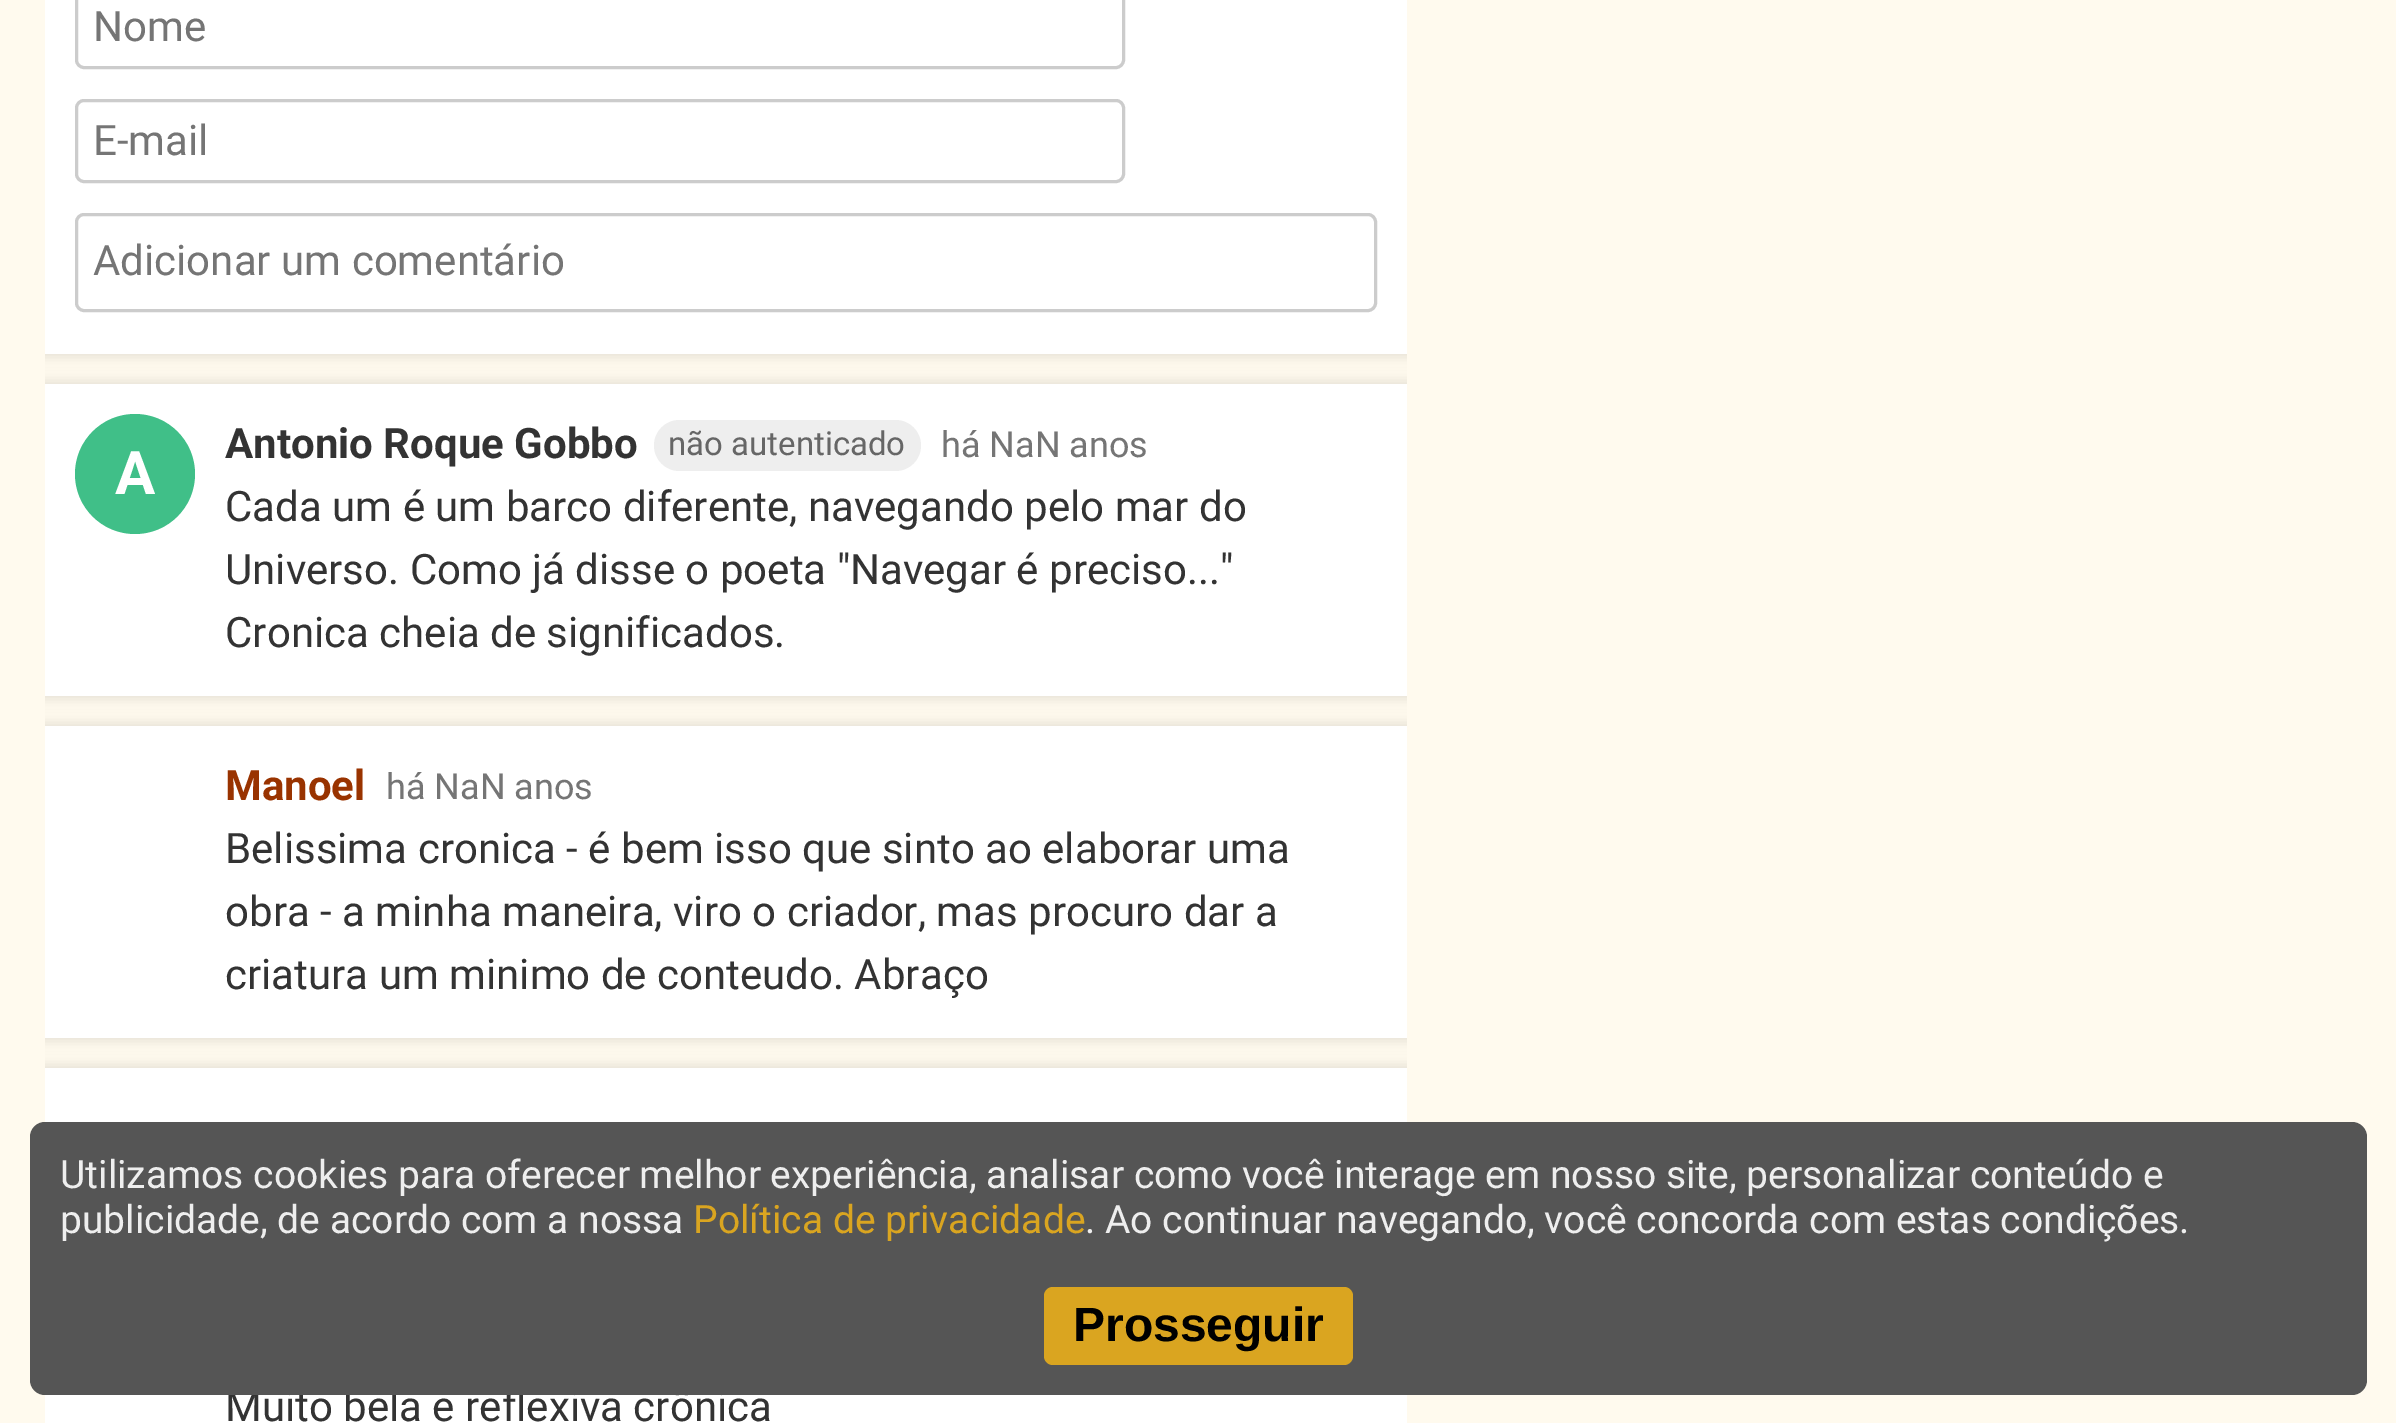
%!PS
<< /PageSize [2396 1423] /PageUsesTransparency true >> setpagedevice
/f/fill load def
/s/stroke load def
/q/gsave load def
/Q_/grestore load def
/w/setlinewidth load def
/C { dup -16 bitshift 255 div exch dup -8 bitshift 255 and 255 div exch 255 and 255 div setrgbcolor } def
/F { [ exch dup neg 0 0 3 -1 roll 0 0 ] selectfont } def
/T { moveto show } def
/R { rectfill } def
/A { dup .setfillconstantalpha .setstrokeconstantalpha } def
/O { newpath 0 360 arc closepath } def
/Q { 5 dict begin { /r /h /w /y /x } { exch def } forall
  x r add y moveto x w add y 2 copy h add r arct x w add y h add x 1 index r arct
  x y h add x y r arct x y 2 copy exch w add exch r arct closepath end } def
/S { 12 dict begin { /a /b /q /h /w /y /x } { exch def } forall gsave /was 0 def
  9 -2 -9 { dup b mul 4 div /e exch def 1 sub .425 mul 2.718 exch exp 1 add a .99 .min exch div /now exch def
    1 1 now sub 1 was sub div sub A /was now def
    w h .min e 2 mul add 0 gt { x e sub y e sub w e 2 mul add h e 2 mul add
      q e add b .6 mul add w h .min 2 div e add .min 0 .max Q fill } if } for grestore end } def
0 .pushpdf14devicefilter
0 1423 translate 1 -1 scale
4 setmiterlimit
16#FFFAEE C
0 0 2396 1423 R
q
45 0 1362 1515 rectclip
16#000000 C
42 -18 1368 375 0 6 .1 S
Q_
16#FFFFFF C
45 0 1362 354 R
16#CCCCCC C
3 w
76.5 -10.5 1047 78 7.5 Q s
/Roboto-Regular 42 F
16#757575 C
(Nome) 93 41 T
16#CCCCCC C
76.5 100.5 1047 81 7.5 Q s
16#757575 C
(E-mail) 93 155 T
16#CCCCCC C
76.5 214.5 1299 96 7.5 Q s
16#757575 C
(Adicionar um comentário) 93 275 T
q
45 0 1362 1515 rectclip
16#000000 C
42 381 1368 318 0 6 .1 S
Q_
16#FFFFFF C
45 384 1362 312 R
16#40BF88 C
135 474 60 O f
/Roboto-Bold 60 F
16#FFFFFF C
(A) 115 494 T
/Roboto-Bold 42 F
16#333333 C
(Antonio Roque Gobbo) 225 458 T
16#EEEEEE C
654 420 267 51 25.5 Q f
/Roboto-Regular 33 F
16#666666 C
(não autenticado) 668 455 T
/Roboto-Regular 36 F
16#757575 C
(há NaN anos) 941 457 T
/Roboto-Regular 42 F
16#333333 C
(Cada um é um barco diferente, navegando pelo mar do) 225 521 T
(Universo. Como já disse o poeta "Navegar é preciso...") 225 584 T
(Cronica cheia de significados.) 225 647 T
q
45 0 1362 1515 rectclip
16#000000 C
42 723 1368 318 0 6 .1 S
Q_
16#FFFFFF C
45 726 1362 312 R
/Roboto-Bold 42 F
16#993300 C
(Manoel) 225 800 T
/Roboto-Regular 36 F
16#757575 C
(há NaN anos) 386 799 T
/Roboto-Regular 42 F
16#333333 C
(Belissima cronica - é bem isso que sinto ao elaborar uma) 225 863 T
(obra - a minha maneira, viro o criador, mas procuro dar a) 225 926 T
(criatura um minimo de conteudo. Abraço) 225 989 T
q
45 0 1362 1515 rectclip
16#000000 C
42 1065 1368 192 0 6 .1 S
Q_
16#FFFFFF C
45 1068 1362 54 R
45 1395 1362 28 R
16#333333 C
(Muito bela e reflexiva crônica) 225 1421 T
16#555555 C
30 1122 2337 273 15 Q f
/Roboto-Regular 39 F
16#EEEEEE C
(Utilizamos cookies para oferecer melhor experiência, analisar como você interage em nosso site, personalizar conteúdo e) 60 1188 T
(publicidade, de acordo com a nossa) 60 1233 T
16#DAA520 C
(Política de privacidade) 693 1233 T
16#EEEEEE C
(. Ao continuar navegando, você concorda com estas condições.) 1085 1233 T
16#DAA520 C
1044 1287 309 78 9 Q f
/LiberationSans-Bold 48 F
16#000000 C
(Prosseguir) 1073 1341 T
.poppdf14devicefilter showpage
